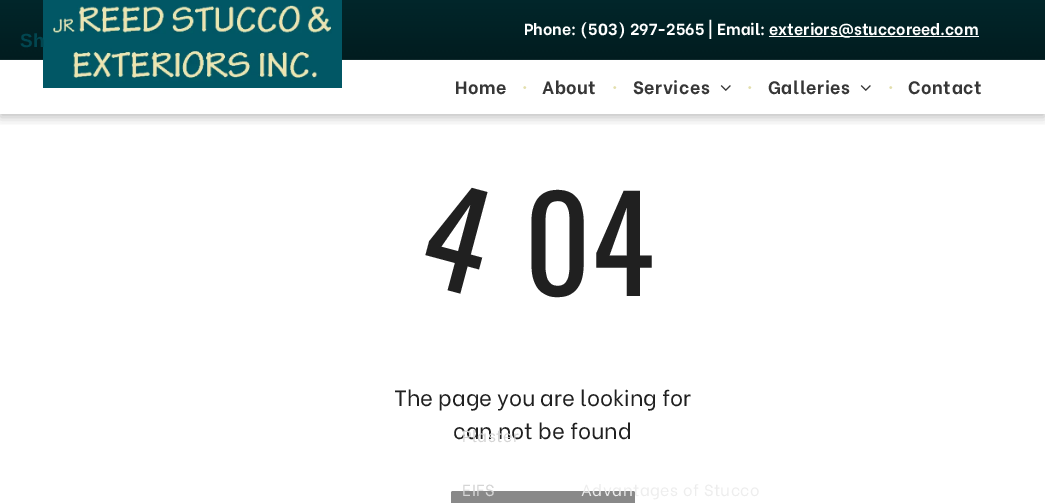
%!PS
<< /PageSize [1045 503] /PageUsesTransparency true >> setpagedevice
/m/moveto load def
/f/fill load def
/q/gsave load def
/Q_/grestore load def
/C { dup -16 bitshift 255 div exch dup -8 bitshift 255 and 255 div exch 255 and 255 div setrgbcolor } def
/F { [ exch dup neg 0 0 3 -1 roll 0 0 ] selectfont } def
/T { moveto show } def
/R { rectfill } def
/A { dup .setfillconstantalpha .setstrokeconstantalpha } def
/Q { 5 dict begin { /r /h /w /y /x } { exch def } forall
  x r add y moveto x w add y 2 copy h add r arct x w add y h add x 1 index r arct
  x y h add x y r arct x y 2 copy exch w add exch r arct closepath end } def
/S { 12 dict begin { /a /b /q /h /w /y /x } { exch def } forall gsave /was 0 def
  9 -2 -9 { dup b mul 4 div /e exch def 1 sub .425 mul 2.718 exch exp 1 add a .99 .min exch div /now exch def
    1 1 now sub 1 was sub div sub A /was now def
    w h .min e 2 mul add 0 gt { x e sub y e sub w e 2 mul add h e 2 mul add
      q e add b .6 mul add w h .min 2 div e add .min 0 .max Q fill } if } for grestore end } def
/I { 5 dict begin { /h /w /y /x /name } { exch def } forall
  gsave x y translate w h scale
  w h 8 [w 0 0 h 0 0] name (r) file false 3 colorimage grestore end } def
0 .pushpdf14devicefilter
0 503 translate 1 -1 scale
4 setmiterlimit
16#FFFFFF C
0 0 1045 503 R
q
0 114 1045 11 rectclip
16#000000 C
0 3 1045 114 0 5.5 .25 S
Q_
(1.rgb) 0 0 1045 60 I
(2.rgb) 43 0 299 88 I
/LiberationSans-Bold 19 F
16#014650 C
(Sh) 20 47 T
/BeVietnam-Bold 16 F
16#FFFFFF C
(Phone: \(503\) 297-2565 | Email:) 524 35 T
769 36 210 1 R
(exteriors@stuccoreed.com) 769 35 T
/BeVietnam-Bold 18 F
16#373737 C
455 94 m .5 0 (Home) ashow
16#E3DFAD C
(·) 522 94 T
16#373737 C
542 94 m .5 0 (About) ashow
16#E3DFAD C
(·) 612 94 T
16#373737 C
633 94 m .5 0 (Services) ashow
(3.rgb) 720 85 11 6 I
16#E3DFAD C
(·) 747 94 T
16#373737 C
768 94 m .5 0 (Galleries) ashow
(3.rgb) 860 85 11 6 I
16#E3DFAD C
(·) 888 94 T
16#373737 C
908 94 m .5 0 (Contact) ashow
/Oswald-Regular 130 F
16#202020 C
q 413 281 translate 15 rotate 0 0 m (4) show Q_
(04) 524 296 T
/BeVietnam-Regular 22 F
(The page you are looking for) 394 406 T
(can not be found) 453 439 T
16#898989 C
451 491 184 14 2 Q f
/BeVietnam-Regular 16 F
16#D5D5D5 C
462 442 m .5 0 (Plaster) ashow
462 496 m .5 0 (EIFS) ashow
16#EDEDED C
581 496 m .5 0 (Advantages of Stucco) ashow
.poppdf14devicefilter showpage
